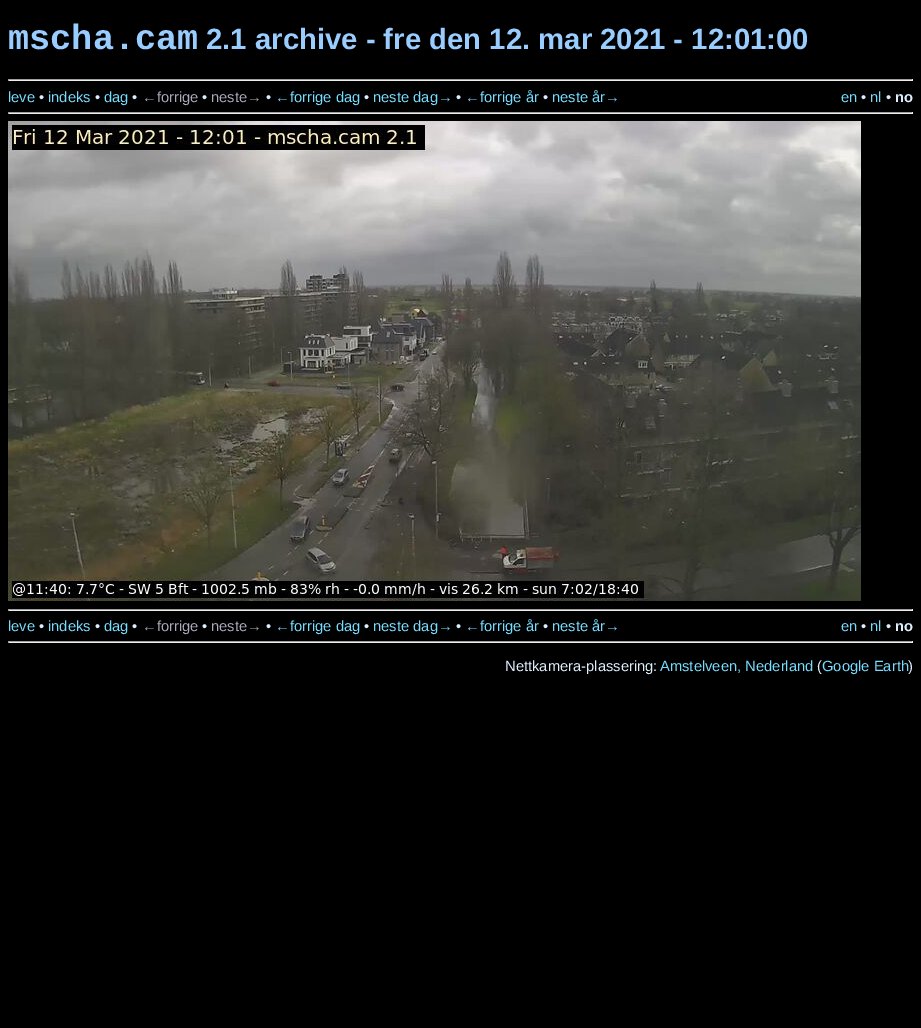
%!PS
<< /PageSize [921 1028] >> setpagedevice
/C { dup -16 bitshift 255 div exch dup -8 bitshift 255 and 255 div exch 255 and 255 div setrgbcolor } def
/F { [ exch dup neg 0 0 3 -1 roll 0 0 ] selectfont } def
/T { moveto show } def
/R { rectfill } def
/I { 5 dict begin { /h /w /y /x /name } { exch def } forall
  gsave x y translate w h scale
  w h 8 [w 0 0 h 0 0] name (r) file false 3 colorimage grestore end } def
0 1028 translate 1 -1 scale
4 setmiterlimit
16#000000 C
0 0 921 1028 R
/LiberationMono-Bold 35.25 F
16#99CCFF C
(mscha.cam) 8 49 T
/LiberationSans-Bold 29.3 F
(2.1 archive - fre den 12. mar 2021 - 12:01:00) 206 49 T
16#9F9F9F C
8 79 905 1 R
16#EEEEEE C
912 79 1 2 R
8 80 905 1 R
16#9F9F9F C
8 79 1 2 R
/LiberationSans-Regular 14.75 F
16#77DDFF C
(leve) 8 102 T
16#DDEEFF C
(•) 39 102 T
16#77DDFF C
(indeks) 48 102 T
16#DDEEFF C
(•) 95 102 T
16#77DDFF C
(dag) 104 102 T
16#DDEEFF C
(•) 132 102 T
16#AAAABB C
(←forrige) 142 102 T
16#DDEEFF C
(•) 202 102 T
16#AAAABB C
(neste→) 211 102 T
16#DDEEFF C
(•) 266 102 T
16#77DDFF C
(←forrige dag) 275 102 T
16#DDEEFF C
(•) 364 102 T
16#77DDFF C
(neste dag→) 373 102 T
16#DDEEFF C
(•) 456 102 T
16#77DDFF C
(←forrige år) 465 102 T
16#DDEEFF C
(•) 543 102 T
16#77DDFF C
(neste år→) 552 102 T
(en) 841 102 T
16#DDEEFF C
(•) 861 102 T
16#77DDFF C
(nl) 870 102 T
16#DDEEFF C
(•) 886 102 T
/LiberationSans-Bold 14.75 F
(no) 895 102 T
16#9F9F9F C
8 112 905 1 R
16#EEEEEE C
912 112 1 2 R
8 113 905 1 R
16#9F9F9F C
8 112 1 2 R
(1.rgb) 8 121 853 480 I
8 609 905 1 R
16#EEEEEE C
912 609 1 2 R
8 610 905 1 R
16#9F9F9F C
8 609 1 2 R
/LiberationSans-Regular 14.75 F
16#77DDFF C
(leve) 8 631 T
16#DDEEFF C
(•) 39 631 T
16#77DDFF C
(indeks) 48 631 T
16#DDEEFF C
(•) 95 631 T
16#77DDFF C
(dag) 104 631 T
16#DDEEFF C
(•) 132 631 T
16#AAAABB C
(←forrige) 142 631 T
16#DDEEFF C
(•) 202 631 T
16#AAAABB C
(neste→) 211 631 T
16#DDEEFF C
(•) 266 631 T
16#77DDFF C
(←forrige dag) 275 631 T
16#DDEEFF C
(•) 364 631 T
16#77DDFF C
(neste dag→) 373 631 T
16#DDEEFF C
(•) 456 631 T
16#77DDFF C
(←forrige år) 465 631 T
16#DDEEFF C
(•) 543 631 T
16#77DDFF C
(neste år→) 552 631 T
(en) 841 631 T
16#DDEEFF C
(•) 861 631 T
16#77DDFF C
(nl) 870 631 T
16#DDEEFF C
(•) 886 631 T
/LiberationSans-Bold 14.75 F
(no) 895 631 T
16#9F9F9F C
8 641 905 1 R
16#EEEEEE C
912 641 1 2 R
8 642 905 1 R
16#9F9F9F C
8 641 1 2 R
/LiberationSans-Regular 14.75 F
16#DDEEFF C
(Nettkamera-plassering:) 505 671 T
16#77DDFF C
(Amstelveen, Nederland) 660 671 T
16#DDEEFF C
(\() 817 671 T
16#77DDFF C
(Google Earth) 822 671 T
16#DDEEFF C
(\)) 908 671 T
showpage
